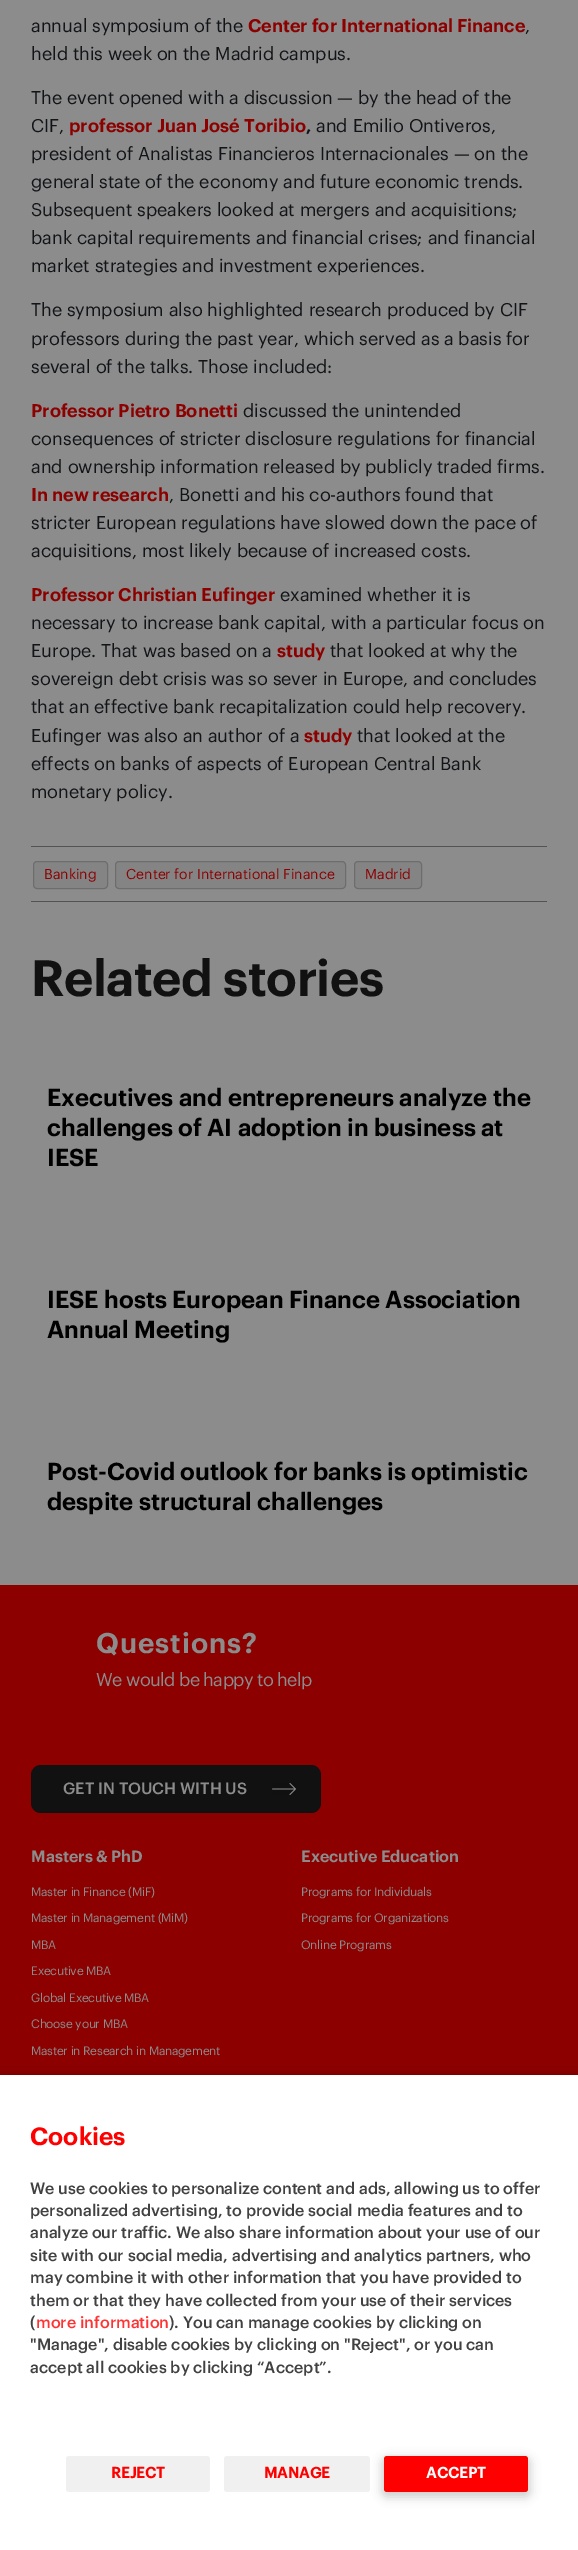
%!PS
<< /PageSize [578 2550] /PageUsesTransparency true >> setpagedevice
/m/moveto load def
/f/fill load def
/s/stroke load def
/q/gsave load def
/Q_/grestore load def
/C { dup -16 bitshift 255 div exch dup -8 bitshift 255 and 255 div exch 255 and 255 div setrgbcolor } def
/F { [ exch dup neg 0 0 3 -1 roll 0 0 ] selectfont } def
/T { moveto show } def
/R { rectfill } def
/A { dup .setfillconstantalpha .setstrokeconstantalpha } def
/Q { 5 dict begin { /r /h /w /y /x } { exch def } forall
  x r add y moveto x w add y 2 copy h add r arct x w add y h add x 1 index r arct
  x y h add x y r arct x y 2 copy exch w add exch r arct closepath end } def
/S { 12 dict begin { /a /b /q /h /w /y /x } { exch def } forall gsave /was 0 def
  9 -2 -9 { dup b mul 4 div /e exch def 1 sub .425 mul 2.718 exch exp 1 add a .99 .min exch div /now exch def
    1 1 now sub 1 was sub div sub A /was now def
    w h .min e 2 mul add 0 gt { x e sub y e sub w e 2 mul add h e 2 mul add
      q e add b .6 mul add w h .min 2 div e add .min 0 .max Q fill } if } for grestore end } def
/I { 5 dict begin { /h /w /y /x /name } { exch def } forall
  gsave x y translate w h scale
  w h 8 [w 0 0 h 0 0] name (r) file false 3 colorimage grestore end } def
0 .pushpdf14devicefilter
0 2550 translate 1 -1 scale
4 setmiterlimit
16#8C8C8C C
0 0 578 2550 R
/Graphik-Regular 18 F
16#121417 C
(annual symposium of the) 31 32 T
/Graphik-SemiBold 18 F
16#8C0000 C
(Center for International Finance) 248 32 T
/Graphik-Regular 18 F
16#121417 C
(,) 525 32 T
(held this week on the Madrid campus.) 31 60 T
(The event opened with a discussion — by the head of the) 31 104 T
(CIF,) 31 132 T
/Graphik-SemiBold 18 F
16#8C0000 C
(professor Juan José Toribio) 69 132 T
16#121417 C
(,) 306 132 T
/Graphik-Regular 18 F
(and Emilio Ontiveros,) 316 132 T
(president of Analistas Financieros Internacionales — on the) 31 160 T
(general state of the economy and future economic trends.) 31 188 T
(Subsequent speakers looked at mergers and acquisitions;) 31 216 T
(bank capital requirements and financial crises; and financial) 31 244 T
(market strategies and investment experiences.) 31 272 T
(The symposium also highlighted research produced by CIF) 31 316 T
(professors during the past year, which served as a basis for) 31 345 T
(several of the talks. Those included:) 31 373 T
/Graphik-SemiBold 18 F
16#8C0000 C
(Professor Pietro Bonetti) 31 417 T
/Graphik-Regular 18 F
16#121417 C
(discussed the unintended) 243 417 T
(consequences of stricter disclosure regulations for financial) 31 445 T
(and ownership information released by publicly traded firms.) 31 473 T
/Graphik-SemiBold 18 F
16#8C0000 C
(In new research) 31 501 T
/Graphik-Regular 18 F
16#121417 C
(, Bonetti and his co-authors found that) 169 501 T
(stricter European regulations have slowed down the pace of) 31 529 T
(acquisitions, most likely because of increased costs.) 31 557 T
/Graphik-SemiBold 18 F
16#8C0000 C
(Professor Christian Eufinger) 31 601 T
/Graphik-Regular 18 F
16#121417 C
(examined whether it is) 280 601 T
(necessary to increase bank capital, with a particular focus on) 31 629 T
(Europe. That was based on a) 31 657 T
/Graphik-SemiBold 18 F
16#8C0000 C
(study) 277 657 T
/Graphik-Regular 18 F
16#121417 C
(that looked at why the) 330 657 T
(sovereign debt crisis was so sever in Europe, and concludes) 31 685 T
(that an effective bank recapitalization could help recovery.) 31 713 T
(Eufinger was also an author of a) 31 742 T
/Graphik-SemiBold 18 F
16#8C0000 C
(study) 304 742 T
/Graphik-Regular 18 F
16#121417 C
(that looked at the) 357 742 T
(effects on banks of aspects of European Central Bank) 31 770 T
(monetary policy.) 31 798 T
16#535353 C
31 846 516 1 R
31 901 516 1 R
16#848484 C
33.5 861.5 74 27 3.5 Q q f Q_
16#6D6D6D C
s
/Graphik-Regular 14 F
16#8C0000 C
(Banking) 44 879 T
16#848484 C
115.5 861.5 230 27 3.5 Q q f Q_
16#6D6D6D C
s
16#8C0000 C
(Center for International Finance) 126 879 T
16#848484 C
354.5 861.5 67 27 3.5 Q q f Q_
16#6D6D6D C
s
16#8C0000 C
(Madrid) 365 879 T
/Graphik-SemiBold 50 F
16#111111 C
31 996 m -.5 0 (Related stories) ashow
/Graphik-SemiBold 24 F
16#000000 C
(Executives and entrepreneurs analyze the) 47 1106 T
(challenges of AI adoption in business at) 47 1136 T
(IESE) 47 1166 T
(IESE hosts European Finance Association) 47 1308 T
(Annual Meeting) 47 1338 T
(Post-Covid outlook for banks is optimistic) 47 1480 T
(despite structural challenges) 47 1510 T
16#8C0000 C
0 1585 578 490 R
/Graphik-SemiBold 28 F
16#8C8C8C C
96 1653 m 1 0 (Questions?) ashow
/Graphik-Regular 18 F
96 1686 m -.6 0 (We would be happy to help) ashow
16#111111 C
31 1765 290 48 10 Q f
(1.rgb) 272 1783 24 12 I
/Graphik-Medium 16 F
16#8C8C8C C
(GET IN TOUCH WITH US) 63 1794 T
/Graphik-SemiBold 16 F
(Masters & PhD) 31 1862 T
/Graphik-Regular 12 F
31 1896 m -.25 0 (Master in Finance \(MiF\)) ashow
31 1922 m -.25 0 (Master in Management \(MiM\)) ashow
31 1949 m -.25 0 (MBA) ashow
31 1975 m -.25 0 (Executive MBA) ashow
31 2002 m -.25 0 (Global Executive MBA) ashow
31 2028 m -.25 0 (Choose your MBA) ashow
31 2055 m -.25 0 (Master in Research in Management) ashow
/Graphik-SemiBold 16 F
(Executive Education) 301 1862 T
/Graphik-Regular 12 F
301 1896 m -.25 0 (Programs for Individuals) ashow
301 1922 m -.25 0 (Programs for Organizations) ashow
301 1949 m -.25 0 (Online Programs) ashow
16#000000 C
0 2075 578 475 0 5 .2 S
16#FFFFFF C
0 2075 578 475 R
/Graphik-SemiBold 24.5 F
16#FF0000 C
(Cookies) 30 2145 T
/Graphik-Medium 16 F
16#414141 C
(We use cookies to personalize content and ads, allowing us to offer) 30 2194 T
(personalized advertising, to provide social media features and to) 30 2216 T
(analyze our traffic. We also share information about your use of our) 30 2238 T
(site with our social media, advertising and analytics partners, who) 30 2261 T
(may combine it with other information that you have provided to) 30 2283 T
(them or that they have collected from your use of their services) 30 2306 T
(\() 30 2328 T
16#FF3333 C
(more information) 36 2328 T
16#414141 C
(\). You can manage cookies by clicking on) 169 2328 T
("Manage", disable cookies by clicking on "Reject", or you can) 30 2350 T
(accept all cookies by clicking “Accept”.) 30 2373 T
16#F0F0F0 C
66 2456 144 36 3 Q f
/Graphik-Bold 15 F
16#FF0000 C
(REJECT) 111 2478 T
16#F0F0F0 C
224 2456 146 36 3 Q f
16#FF0000 C
(MANAGE) 264 2478 T
16#000000 C
382 2458 148 39 5 5 .2 S
16#FF0000 C
384 2456 144 36 3 Q f
16#FFFFFF C
(ACCEPT) 426 2478 T
.poppdf14devicefilter showpage
